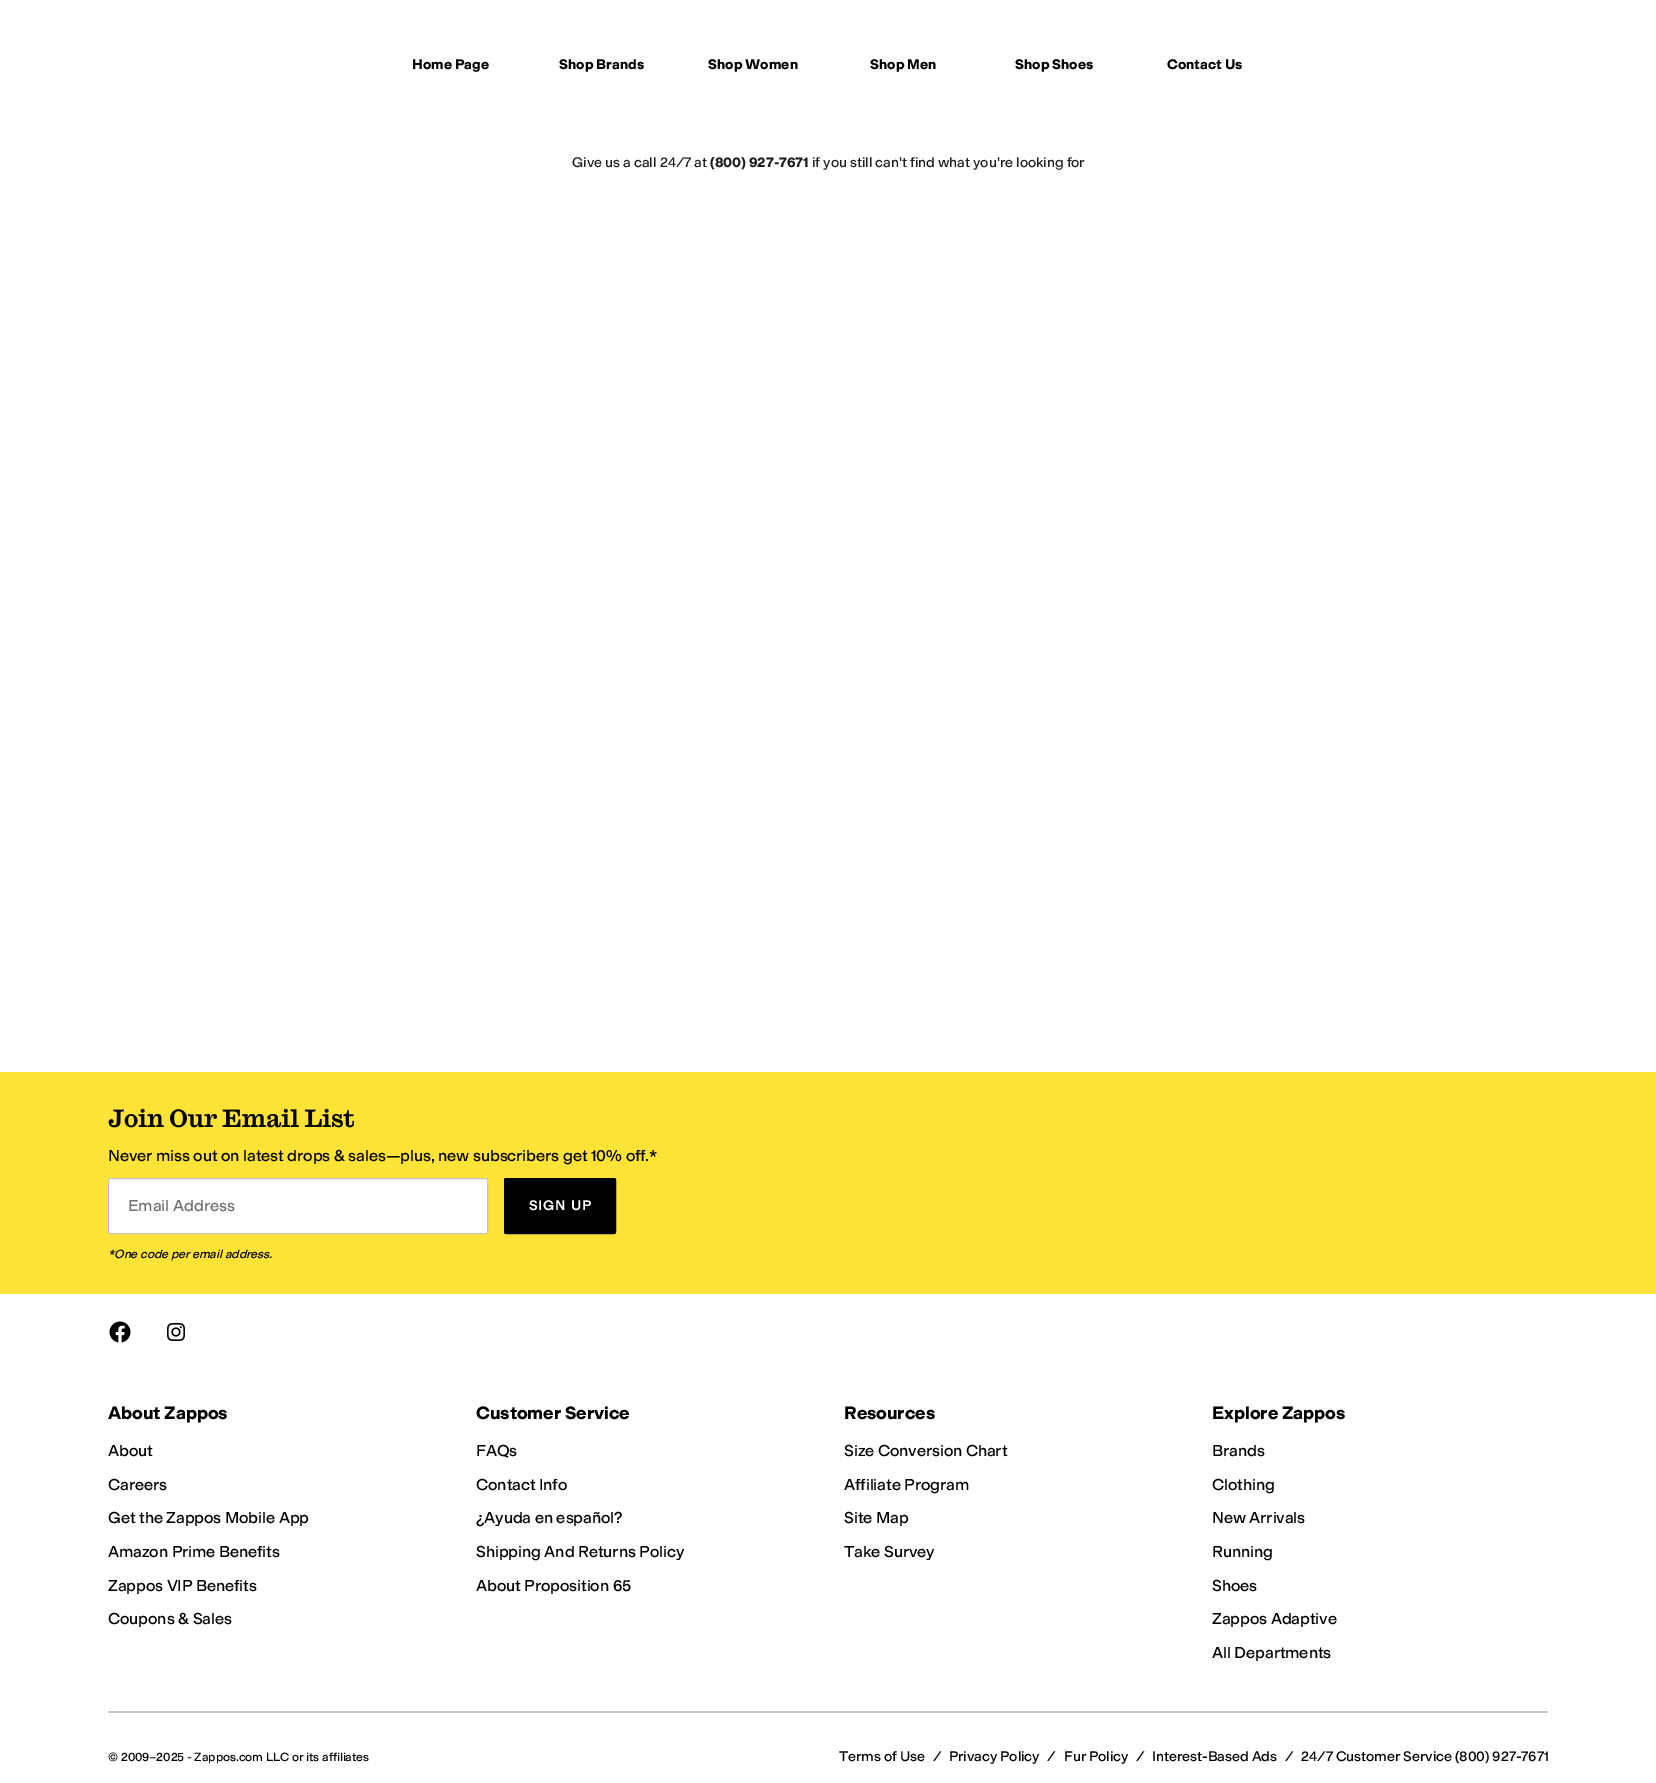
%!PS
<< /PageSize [1656 1783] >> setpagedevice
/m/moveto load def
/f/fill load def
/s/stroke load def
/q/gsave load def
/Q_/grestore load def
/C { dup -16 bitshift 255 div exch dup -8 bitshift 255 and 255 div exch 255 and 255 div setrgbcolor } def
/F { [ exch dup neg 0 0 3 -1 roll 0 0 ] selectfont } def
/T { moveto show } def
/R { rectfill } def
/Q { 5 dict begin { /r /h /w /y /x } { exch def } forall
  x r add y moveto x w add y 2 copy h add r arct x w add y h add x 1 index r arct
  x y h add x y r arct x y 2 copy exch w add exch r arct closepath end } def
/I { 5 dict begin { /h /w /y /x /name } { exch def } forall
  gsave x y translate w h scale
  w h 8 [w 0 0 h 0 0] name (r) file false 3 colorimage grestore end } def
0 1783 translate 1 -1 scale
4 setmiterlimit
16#FFFFFF C
0 0 1656 1783 R
/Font-Bold 14 F
16#000000 C
(Home Page) 412 69 T
(Shop Brands) 559 69 T
(Shop Women) 708 69 T
(Shop Men) 870 69 T
(Shop Shoes) 1015 69 T
(Contact Us) 1167 69 T
/Font-Regular 14 F
16#1F1F1F C
572 167 m -.1 0 (Give us a call 24/7 at) ashow
/Font-Bold 14 F
710 167 m -.1 0 (\(800\) 927-7671) ashow
/Font-Regular 14 F
812 167 m -.1 0 (if you still can't find what you're looking for) ashow
16#FFE337 C
0 1072 1656 222 R
(1.rgb) 108 1108 247 20 I
/Font-Regular 16 F
16#000000 C
108 1161 m -.15 0 (Never miss out on latest drops & sales—plus, new subscribers get 10% off.*) ashow
16#FFFFFF C
108.5 1178.5 379 55 1.5 Q q f Q_
16#C5C5C5 C
s
16#707070 C
128 1211 m -.1 0 (Email Address) ashow
16#000000 C
504.5 1178.5 111 55 1.5 Q q f Q_
s
/Font-Medium 14 F
16#FFFFFF C
529 1210 m .75 0 (SIGN UP) ashow
/Font-Italic 12 F
16#000000 C
108 1258 m -.1 0 (*One code per email address.) ashow
(2.rgb) 109 1321 22 22 I
(3.rgb) 167 1323 18 18 I
/Font-Bold 18 F
108 1419 m -.1 0 (About Zappos) ashow
/Font-Regular 16 F
108 1456 m -.15 0 (About) ashow
108 1490 m -.15 0 (Careers) ashow
108 1523 m -.15 0 (Get the Zappos Mobile App) ashow
108 1557 m -.15 0 (Amazon Prime Benefits) ashow
108 1591 m -.15 0 (Zappos VIP Benefits) ashow
108 1624 m -.15 0 (Coupons & Sales) ashow
/Font-Bold 18 F
476 1419 m -.1 0 (Customer Service) ashow
/Font-Regular 16 F
476 1456 m -.15 0 (FAQs) ashow
476 1490 m -.15 0 (Contact Info) ashow
476 1523 m -.15 0 (¿Ayuda en español?) ashow
476 1557 m -.15 0 (Shipping And Returns Policy) ashow
476 1591 m -.15 0 (About Proposition 65) ashow
/Font-Bold 18 F
844 1419 m -.1 0 (Resources) ashow
/Font-Regular 16 F
844 1456 m -.15 0 (Size Conversion Chart) ashow
844 1490 m -.15 0 (Affiliate Program) ashow
844 1523 m -.15 0 (Site Map) ashow
844 1557 m -.15 0 (Take Survey) ashow
/Font-Bold 18 F
1212 1419 m -.1 0 (Explore Zappos) ashow
/Font-Regular 16 F
1212 1456 m -.15 0 (Brands) ashow
1212 1490 m -.15 0 (Clothing) ashow
1212 1523 m -.15 0 (New Arrivals) ashow
1212 1557 m -.15 0 (Running) ashow
1212 1591 m -.15 0 (Shoes) ashow
1212 1624 m -.15 0 (Zappos Adaptive) ashow
1212 1658 m -.15 0 (All Departments) ashow
16#C9C9C9 C
108 1711 1440 2 R
/Font-Regular 12 F
16#000000 C
108 1761 m -.1 0 (© 2009–2025 - Zappos.com LLC or its affiliates) ashow
/Font-Regular 14 F
839 1761 m -.1 0 (Terms of Use) ashow
933 1761 m -.1 0 (/) ashow
949 1761 m -.1 0 (Privacy Policy) ashow
1047 1761 m -.1 0 (/) ashow
1064 1761 m -.1 0 (Fur Policy) ashow
1136 1761 m -.1 0 (/) ashow
1152 1761 m -.1 0 (Interest-Based Ads) ashow
1285 1761 m -.1 0 (/) ashow
1301 1761 m -.1 0 (24/7 Customer Service \(800\) 927-7671) ashow
showpage
